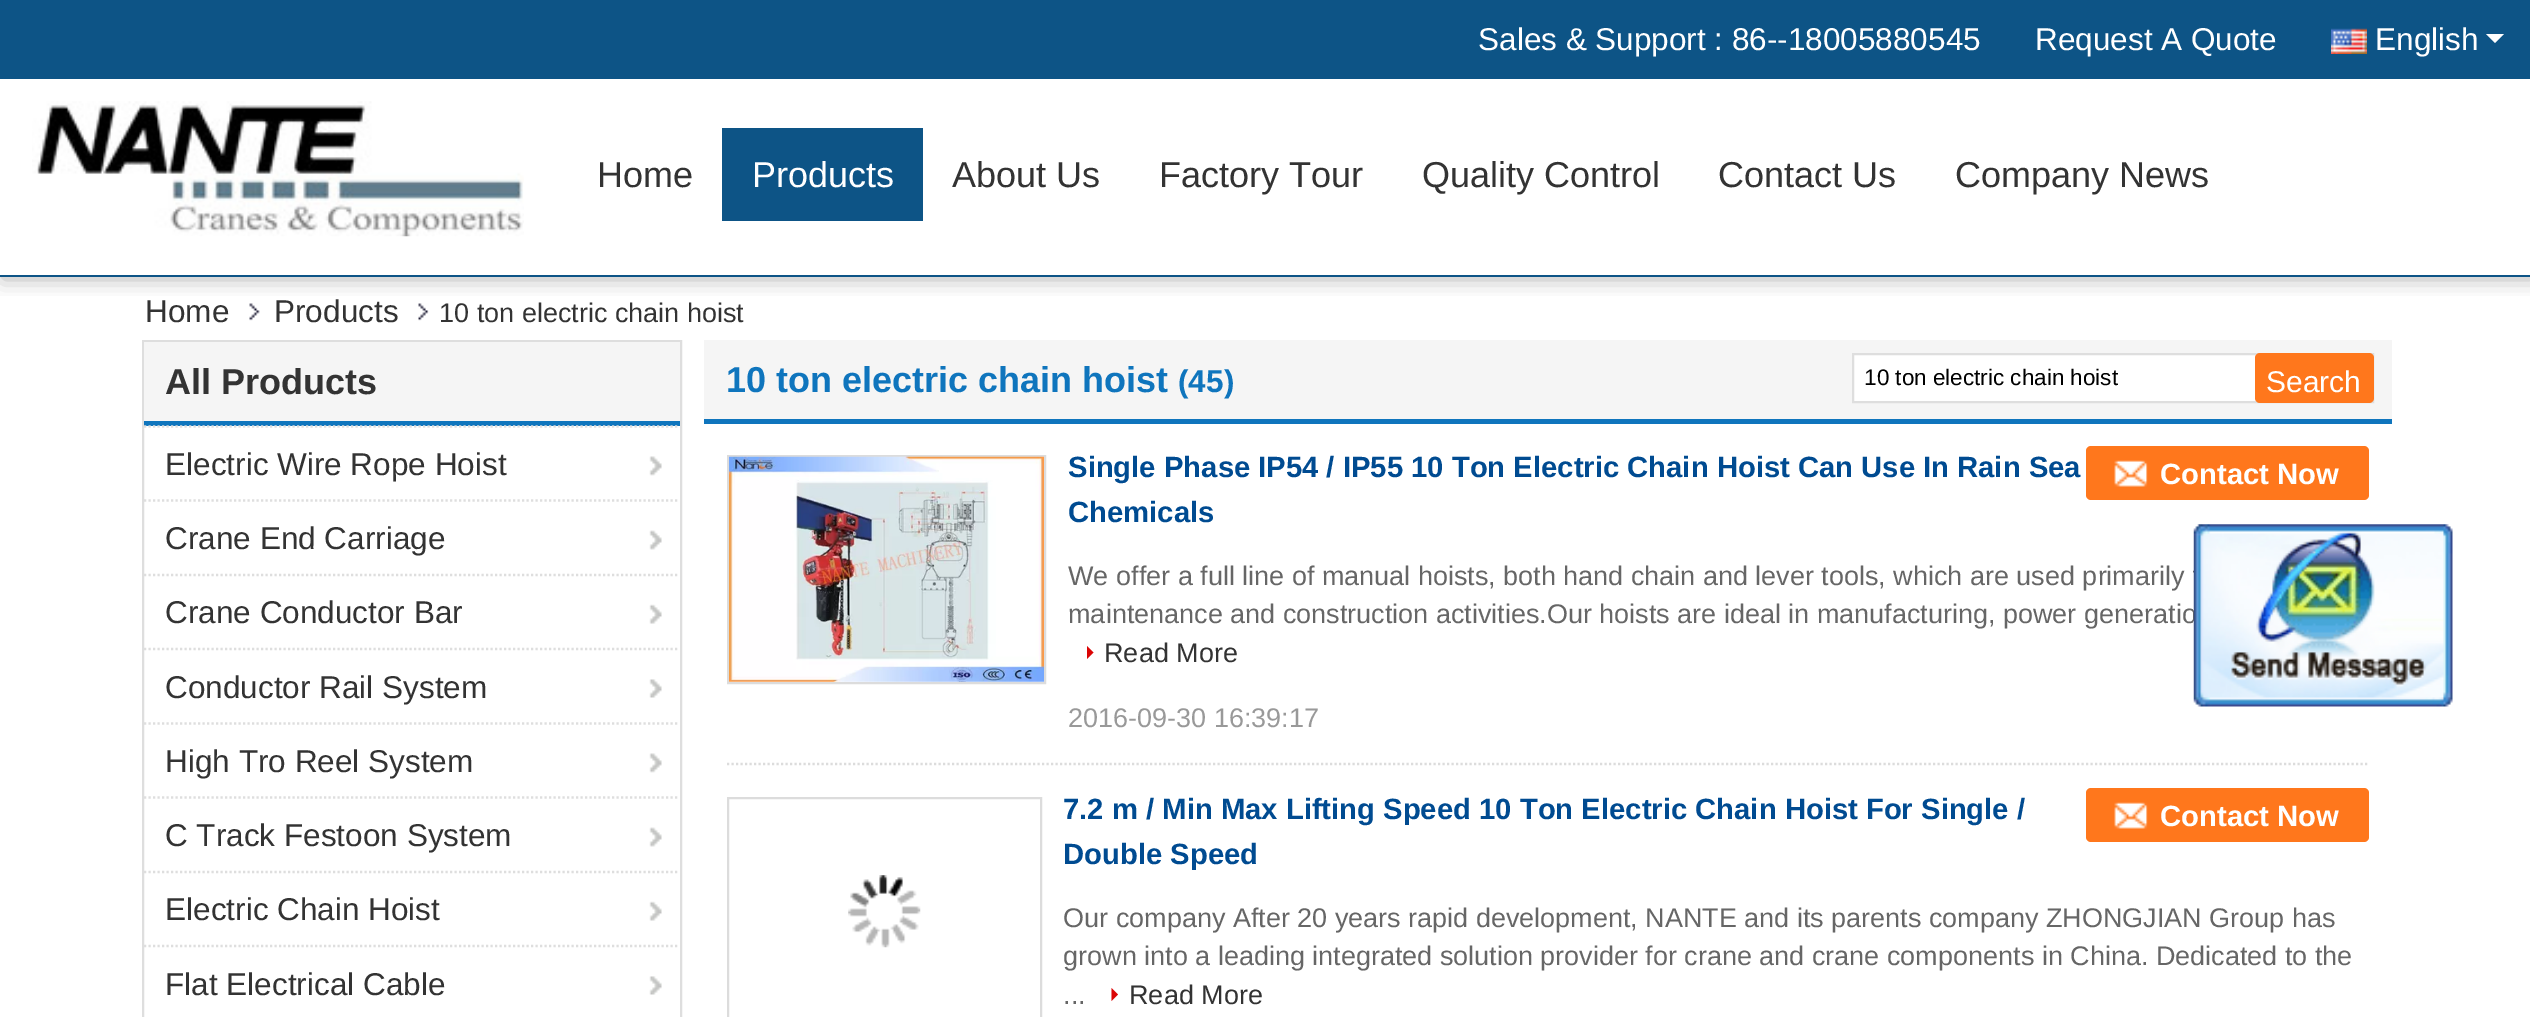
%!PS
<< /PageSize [2530 1017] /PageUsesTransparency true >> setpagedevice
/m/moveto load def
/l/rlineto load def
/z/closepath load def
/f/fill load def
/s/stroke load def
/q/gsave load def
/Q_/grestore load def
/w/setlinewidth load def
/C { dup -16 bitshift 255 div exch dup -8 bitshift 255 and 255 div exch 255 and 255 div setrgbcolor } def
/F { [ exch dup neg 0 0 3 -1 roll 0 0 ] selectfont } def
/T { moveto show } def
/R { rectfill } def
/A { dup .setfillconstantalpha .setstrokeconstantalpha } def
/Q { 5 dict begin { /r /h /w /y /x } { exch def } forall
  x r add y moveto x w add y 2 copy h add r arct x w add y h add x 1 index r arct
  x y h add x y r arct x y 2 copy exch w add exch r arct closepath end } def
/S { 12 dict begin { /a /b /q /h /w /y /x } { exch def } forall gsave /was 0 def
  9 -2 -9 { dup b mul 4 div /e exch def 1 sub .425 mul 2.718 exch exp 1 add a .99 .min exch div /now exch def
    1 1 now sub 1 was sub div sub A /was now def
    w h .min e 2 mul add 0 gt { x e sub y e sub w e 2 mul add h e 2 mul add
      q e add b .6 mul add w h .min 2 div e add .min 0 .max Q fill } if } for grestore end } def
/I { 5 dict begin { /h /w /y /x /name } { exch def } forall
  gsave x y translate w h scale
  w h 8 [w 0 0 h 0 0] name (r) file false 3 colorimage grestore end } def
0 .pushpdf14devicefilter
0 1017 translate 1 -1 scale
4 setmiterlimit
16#FFFFFF C
0 0 2530 1017 R
q
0 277 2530 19 rectclip
16#000000 C
2 2 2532 277 0 11 .3 S
Q_
16#0D5486 C
0 275 2530 2 R
0 0 2530 79 R
/LiberationSans-Regular 31.5 F
16#FFFFFF C
(Sales & Support : 86--18005880545) 1478 50 T
(Request A Quote) 2035 50 T
(1.rgb) 2331 28 36 26 I
(English) 2375 50 T
2486 34 m 18 0 l -9 9 l z f
(2.rgb) 32 101 492 136 I
/LiberationSans-Regular 36 F
16#333333 C
(Home) 597 187 T
16#0D5486 C
722 128 201 93 R
16#FFFFFF C
(Products) 752 187 T
16#333333 C
(About Us) 952 187 T
(Factory Tour) 1159 187 T
(Quality Control) 1422 187 T
(Contact Us) 1718 187 T
(Company News) 1955 187 T
/LiberationSans-Regular 31.5 F
(Home) 145 322 T
(3.rgb) 249 303 11 18 I
(Products) 274 322 T
(4.rgb) 418 303 11 18 I
/LiberationSans-Regular 27 F
(10 ton electric chain hoist) 439 322 T
16#DEDEDE C
2 w
143 341 538 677 rectstroke
16#F5F5F5 C
144 342 536 79 R
16#0F75BD C
144 421 536 5 R
/LiberationSans-Bold 36 F
16#333333 C
(All Products) 165 394 T
16#DEDEDE C
2.2 w
[2.25 2.25] 0 setdash
144 426.5 m 535.5 0 l s
/LiberationSans-Regular 31.5 F
16#333333 C
(Electric Wire Rope Hoist) 165 475 T
(5.rgb) 649 456 13 20 I
16#DEDEDE C
144 500.5 m 535.5 0 l s
16#333333 C
(Crane End Carriage) 165 549 T
(6.rgb) 649 530 13 20 I
16#DEDEDE C
144 575 m 535.5 0 l s
16#333333 C
(Crane Conductor Bar) 165 623 T
(7.rgb) 649 604 13 20 I
16#DEDEDE C
144 649 m 535.5 0 l s
16#333333 C
(Conductor Rail System) 165 698 T
(8.rgb) 649 679 13 19 I
16#DEDEDE C
144 723.5 m 535.5 0 l s
16#333333 C
(High Tro Reel System) 165 772 T
(5.rgb) 649 753 13 20 I
16#DEDEDE C
144 797.5 m 535.5 0 l s
16#333333 C
(C Track Festoon System) 165 846 T
(9.rgb) 649 827 13 20 I
16#DEDEDE C
144 872 m 535.5 0 l s
16#333333 C
(Electric Chain Hoist) 165 920 T
(7.rgb) 649 901 13 20 I
16#DEDEDE C
144 946 m 535.5 0 l s
16#333333 C
(Flat Electrical Cable) 165 995 T
(8.rgb) 649 976 13 19 I
16#F5F5F5 C
704 340 1688 79 R
16#0F75BD C
704 419 1688 5 R
/LiberationSans-Bold 36 F
(10 ton electric chain hoist) 726 392 T
/LiberationSans-Bold 31.5 F
(\(45\)) 1178 392 T
16#FFFFFF C
1854 355 402 46 R
16#DEDEDE C
2 w
[] 0 setdash
1853 354 520 48 rectstroke
/LiberationSans-Regular 22.5 F
16#000000 C
(10 ton electric chain hoist) 1864 385 T
16#FF771C C
2255 353 119 50 5 Q f
/LiberationSans-Regular 30 F
16#FFFFFF C
(Search) 2266 392 T
16#DCDCDC C
2.2 w
[2.25 2.25] 0 setdash
727 764 m 1642 0 l s
2 w
[] 0 setdash
728 456 317 227 rectstroke
(10.rgb) 729 456 315 226 I
/LiberationSans-Bold 29.25 F
16#004B91 C
(Single Phase IP54 / IP55 10 Ton Electric Chain Hoist Can Use In Rain Sea) 1068 477 T
16#FF771C C
2086 446 283 54 5 Q f
(11.rgb) 2114 460 34 27 I
16#FFFFFF C
(Contact Now) 2160 484 T
16#004B91 C
(Chemicals) 1068 522 T
/LiberationSans-Regular 27 F
16#666666 C
(We offer a full line of manual hoists, both hand chain and lever tools, which are used primarily) 1068 585 T
(maintenance and construction activities.Our hoists are ideal in manufacturing, power generatio) 1068 623 T
16#DB0505 C
1087 659 m 0 -13 l 6.5 6.5 l z f
16#333333 C
(Read More) 1104 662 T
16#999999 C
(2016-09-30 16:39:17) 1068 727 T
16#DCDCDC C
728 798 313 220 rectstroke
(12.rgb) 848 875 73 73 I
/LiberationSans-Bold 29.25 F
16#004B91 C
(7.2 m / Min Max Lifting Speed 10 Ton Electric Chain Hoist For Single /) 1063 819 T
16#FF771C C
2086 788 283 54 5 Q f
(11.rgb) 2114 802 34 27 I
16#FFFFFF C
(Contact Now) 2160 826 T
16#004B91 C
(Double Speed) 1063 864 T
/LiberationSans-Regular 27 F
16#666666 C
(Our company After 20 years rapid development, NANTE and its parents company ZHONGJIAN Group has) 1063 927 T
(grown into a leading integrated solution provider for crane and crane components in China. Dedicated to the) 1063 965 T
(...) 1063 1004 T
16#DB0505 C
1111.5 1001 m 0 -13 l 6.5 6.5 l z f
16#333333 C
(Read More) 1129 1004 T
(13.rgb) 2193 524 260 183 I
.poppdf14devicefilter showpage
